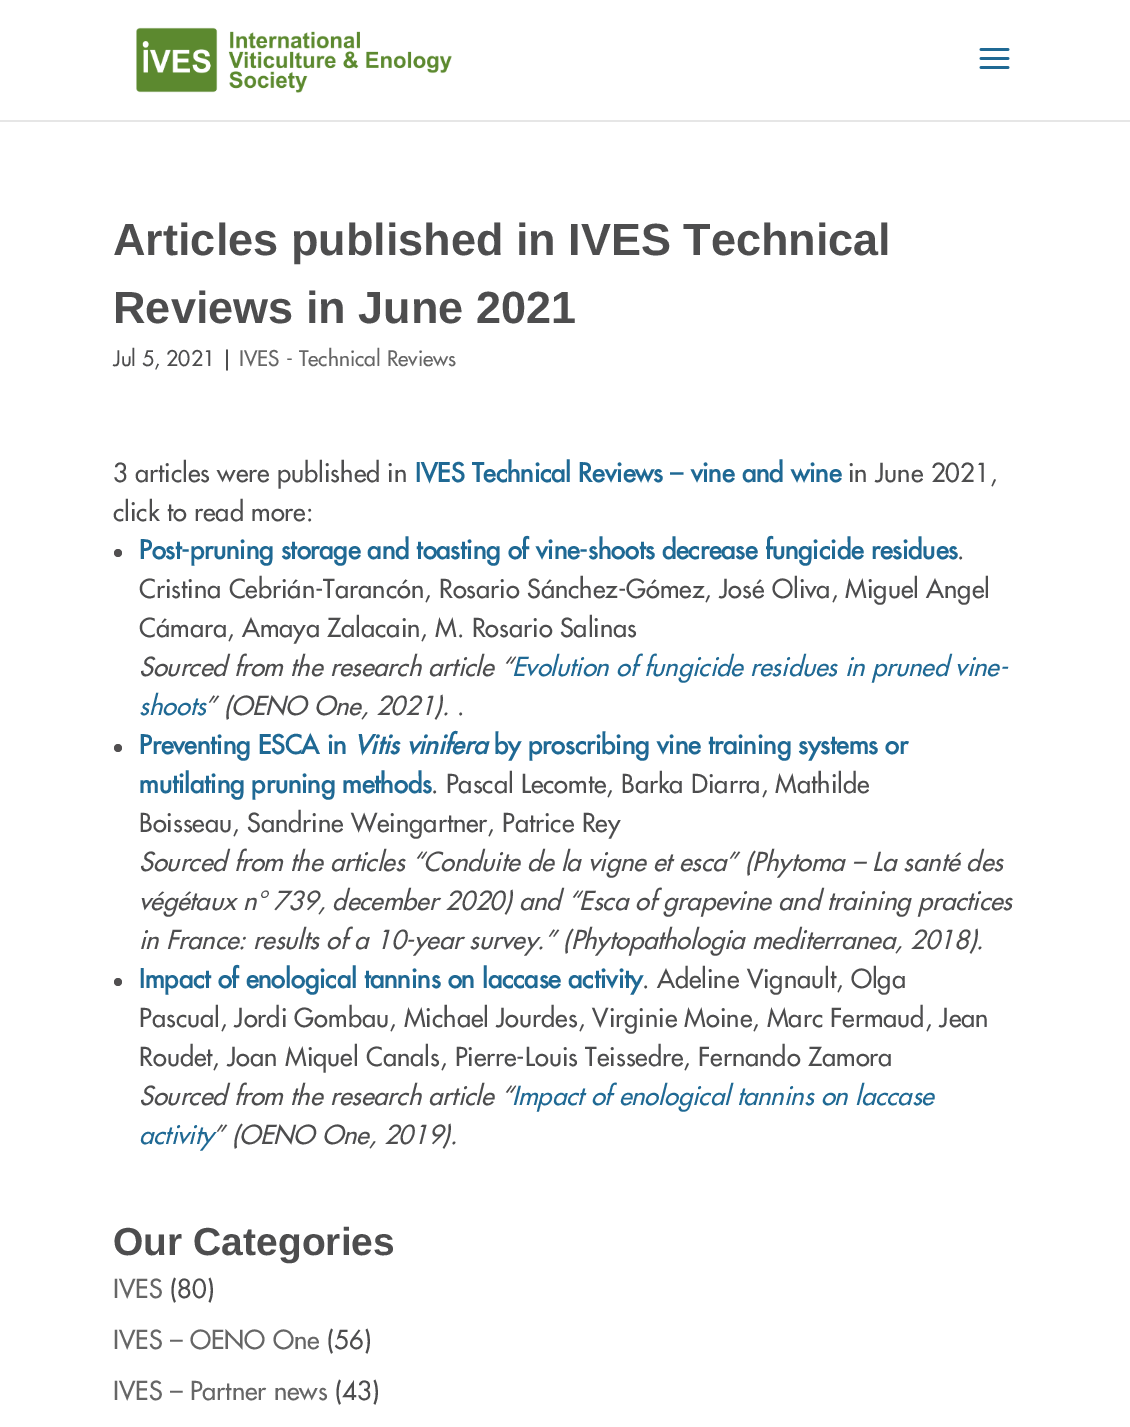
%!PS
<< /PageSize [1130 1427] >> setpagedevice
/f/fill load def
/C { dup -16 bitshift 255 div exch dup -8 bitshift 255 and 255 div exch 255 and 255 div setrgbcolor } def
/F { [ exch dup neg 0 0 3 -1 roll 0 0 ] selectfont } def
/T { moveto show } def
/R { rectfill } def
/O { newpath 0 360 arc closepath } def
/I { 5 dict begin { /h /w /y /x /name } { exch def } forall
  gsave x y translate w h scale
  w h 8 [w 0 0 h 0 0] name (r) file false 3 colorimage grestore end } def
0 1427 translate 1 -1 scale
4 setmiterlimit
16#FFFFFF C
0 0 1130 1427 R
16#E6E6E6 C
0 120 1130 2 R
(1.rgb) 136 27 316 66 I
(2.rgb) 979 48 31 21 I
/LiberationSans-Bold 45 F
16#4D4D4E C
(Articles published in IVES Technical) 113 255 T
(Reviews in June 2021) 113 323 T
/Futura-Medium 21 F
(Jul 5, 2021 |) 113 366 T
16#666666 C
(IVES - Technical Reviews) 239 366 T
/Futura-Medium 25.5 F
16#4D4D4E C
(3 articles were published in) 113 482 T
/Futura-Bold 25.5 F
16#1F6994 C
(IVES Technical Reviews – vine and wine) 415 482 T
/Futura-Medium 25.5 F
16#4D4D4E C
(in June 2021,) 848 482 T
(click to read more:) 113 521 T
16#514F50 C
118 553 4 O f
/Futura-Bold 25.5 F
16#1F6994 C
(Post-pruning storage and toasting of vine-shoots decrease fungicide residues) 139 559 T
/Futura-Medium 25.5 F
16#4D4D4E C
(.) 957 559 T
(Cristina Cebrián-Tarancón, Rosario Sánchez-Gómez, José Oliva, Miguel Angel) 139 598 T
(Cámara, Amaya Zalacain, M. Rosario Salinas) 139 637 T
/Futura-MediumItalic 25.5 F
(Sourced from the research article “) 139 676 T
16#1F6994 C
(Evolution of fungicide residues in pruned vine-) 512 676 T
(shoots) 139 715 T
16#4D4D4E C
(” \(OENO One, 2021\).) 205 715 T
/Futura-Medium 25.5 F
(.) 457 715 T
16#514F50 C
118 748 4 O f
/Futura-Bold 25.5 F
16#1F6994 C
(Preventing ESCA in) 139 754 T
/Futura-BoldItalic 25.5 F
(Vitis vinifera) 354 754 T
/Futura-Bold 25.5 F
(by proscribing vine training systems or) 494 754 T
(mutilating pruning methods) 139 793 T
/Futura-Medium 25.5 F
16#4D4D4E C
(. Pascal Lecomte, Barka Diarra, Mathilde) 431 793 T
(Boisseau, Sandrine Weingartner, Patrice Rey) 139 832 T
/Futura-MediumItalic 25.5 F
(Sourced from the articles “Conduite de la vigne et esca” \(Phytoma – La santé des) 139 871 T
(végétaux n° 739, december 2020\) and “Esca of grapevine and training practices) 139 910 T
(in France: results of a 10-year survey.” \(Phytopathologia mediterranea, 2018\).) 139 949 T
16#514F50 C
118 982 4 O f
/Futura-Bold 25.5 F
16#1F6994 C
(Impact of enological tannins on laccase activity) 139 988 T
/Futura-Medium 25.5 F
16#4D4D4E C
(. Adeline Vignault, Olga) 642 988 T
(Pascual, Jordi Gombau, Michael Jourdes, Virginie Moine, Marc Fermaud, Jean) 139 1027 T
(Roudet, Joan Miquel Canals, Pierre-Louis Teissedre, Fernando Zamora) 139 1066 T
/Futura-MediumItalic 25.5 F
(Sourced from the research article “) 139 1105 T
16#1F6994 C
(Impact of enological tannins on laccase) 512 1105 T
(activity) 139 1144 T
16#4D4D4E C
(” \(OENO One, 2019\).) 213 1144 T
/LiberationSans-Bold 39 F
(Our Categories) 113 1255 T
/Futura-Medium 25.5 F
16#666666 C
(IVES) 113 1298 T
16#4D4D4E C
(\(80\)) 170 1298 T
16#666666 C
(IVES – OENO One) 113 1349 T
16#4D4D4E C
(\(56\)) 327 1349 T
16#666666 C
(IVES – Partner news) 113 1400 T
16#4D4D4E C
(\(43\)) 335 1400 T
showpage
